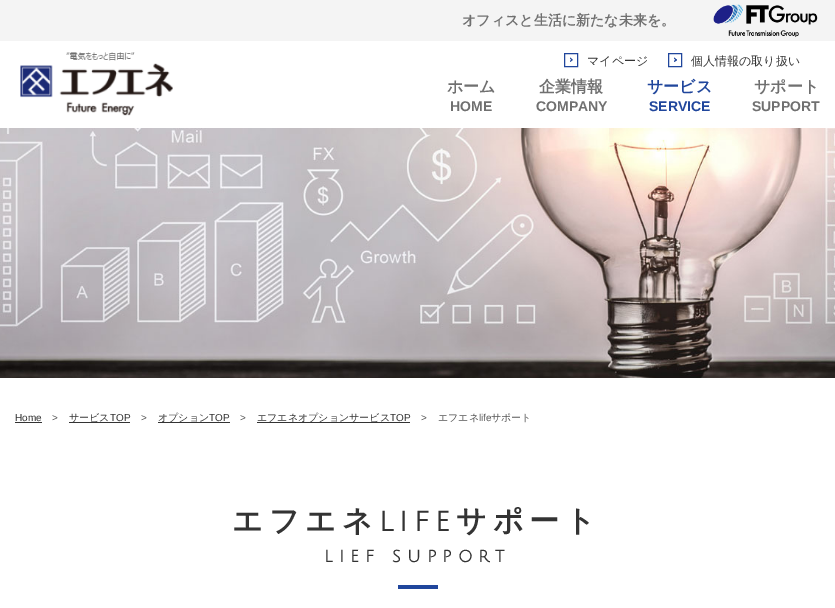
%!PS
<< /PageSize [835 608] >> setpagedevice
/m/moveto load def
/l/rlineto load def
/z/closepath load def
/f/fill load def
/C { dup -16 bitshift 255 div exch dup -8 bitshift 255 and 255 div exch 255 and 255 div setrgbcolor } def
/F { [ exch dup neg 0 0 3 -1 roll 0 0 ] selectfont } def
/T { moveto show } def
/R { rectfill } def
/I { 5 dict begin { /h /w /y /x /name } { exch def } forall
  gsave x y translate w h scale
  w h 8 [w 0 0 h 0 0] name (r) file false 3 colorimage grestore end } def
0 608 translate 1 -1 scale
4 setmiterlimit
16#FFFFFF C
0 0 835 608 R
16#F4F4F4 C
0 0 835 41 R
/WenQuanYiZenHei-Bold 14 F
16#707070 C
(オフィスと生活に新たな未来を。) 462 25 T
(1.rgb) 713 4 105 33 I
(2.rgb) 20 52 153 64 I
16#20469C C
564.5 53.5 13 13 rectstroke
/WenQuanYiZenHei-Medium 12 F
16#333333 C
(マイページ) 587 65 T
16#20469C C
570.5 57.5 m 2 2.5 l -.5 .5 l -2 -2 l z f
572 59 m .5 1 l -2 2 l -.5 -1 l z f
668.5 53.5 13 13 rectstroke
16#333333 C
(個人情報の取り扱い) 691 65 T
16#20469C C
674.5 57.5 m 2.5 2.5 l -1 .5 l -2 -2 l z f
676 59 m 1 1 l -2.5 2 l -.5 -1 l z f
/WenQuanYiZenHei-Bold 16 F
16#707070 C
(ホーム) 447 92 T
/LiberationSans-Bold 14 F
(HOME) 450 111 T
/WenQuanYiZenHei-Bold 16 F
(企業情報) 539 92 T
/LiberationSans-Bold 14 F
(COMPANY) 536 111 T
/WenQuanYiZenHei-Bold 16 F
16#20469C C
(サービス) 647 92 T
/LiberationSans-Bold 14 F
(SERVICE) 649 111 T
/WenQuanYiZenHei-Bold 16 F
16#707070 C
(サポート) 754 92 T
/LiberationSans-Bold 14 F
(SUPPORT) 752 111 T
(3.rgb) 0 128 835 250 I
/LiberationSans-Regular 10 F
16#333333 C
(Home) 15 421 T
15 422 27 1 R
16#555555 C
(>) 52 421 T
16#333333 C
69 422 61 1 R
/WenQuanYiZenHei-Medium 10 F
(サービス) 69 421 T
/LiberationSans-Regular 10 F
(TOP) 110 421 T
16#555555 C
(>) 141 421 T
16#333333 C
158 422 72 1 R
/WenQuanYiZenHei-Medium 10 F
(オプション) 158 421 T
/LiberationSans-Regular 10 F
(TOP) 209 421 T
16#555555 C
(>) 240 421 T
16#333333 C
257 422 153 1 R
/WenQuanYiZenHei-Medium 10 F
(エフエネオプションサービス) 257 421 T
/LiberationSans-Regular 10 F
(TOP) 390 421 T
16#555555 C
(>) 421 421 T
/WenQuanYiZenHei-Medium 10 F
(エフエネ) 438 421 T
/LiberationSans-Regular 10 F
(life) 479 421 T
/WenQuanYiZenHei-Medium 10 F
(サポート) 491 421 T
/WenQuanYiZenHei-Bold 30 F
16#333333 C
232 531 m 6 0 (エフエネ) ashow
/JuliusSansOne-Bold 30 F
379 531 m 6 0 (life) ashow
/WenQuanYiZenHei-Bold 30 F
456 531 m 6 0 (サポート) ashow
/JuliusSansOne-Bold 18 F
324 562 m 6 0 (lief support) ashow
16#20469C C
398 585 40 4 R
showpage
